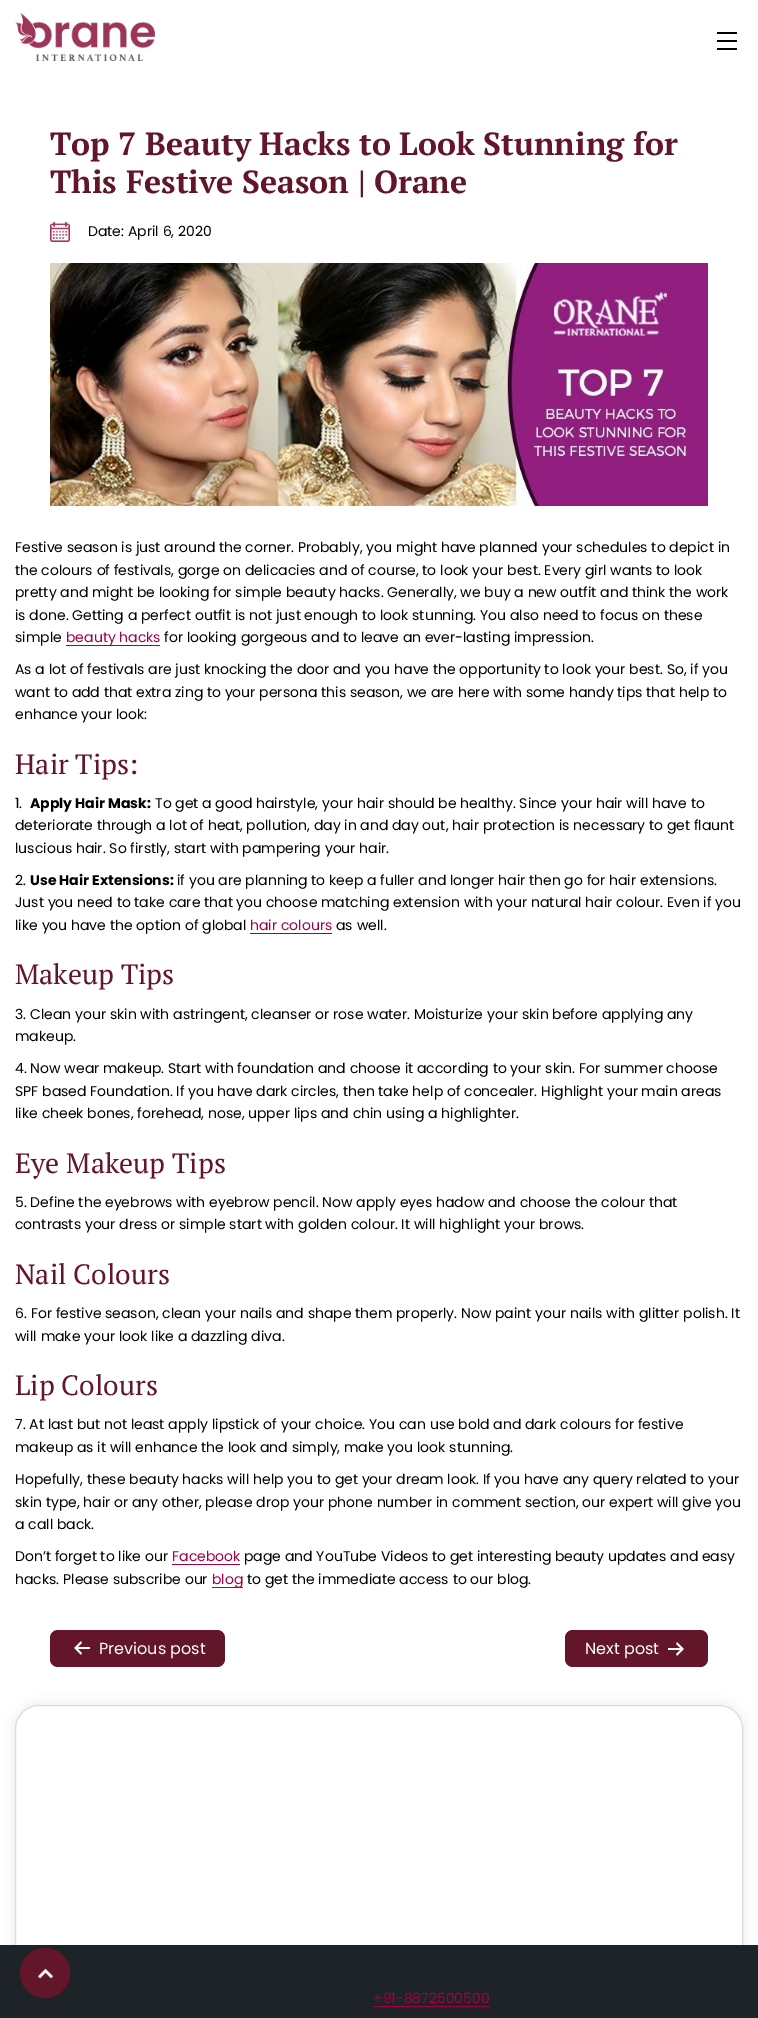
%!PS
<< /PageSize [758 2018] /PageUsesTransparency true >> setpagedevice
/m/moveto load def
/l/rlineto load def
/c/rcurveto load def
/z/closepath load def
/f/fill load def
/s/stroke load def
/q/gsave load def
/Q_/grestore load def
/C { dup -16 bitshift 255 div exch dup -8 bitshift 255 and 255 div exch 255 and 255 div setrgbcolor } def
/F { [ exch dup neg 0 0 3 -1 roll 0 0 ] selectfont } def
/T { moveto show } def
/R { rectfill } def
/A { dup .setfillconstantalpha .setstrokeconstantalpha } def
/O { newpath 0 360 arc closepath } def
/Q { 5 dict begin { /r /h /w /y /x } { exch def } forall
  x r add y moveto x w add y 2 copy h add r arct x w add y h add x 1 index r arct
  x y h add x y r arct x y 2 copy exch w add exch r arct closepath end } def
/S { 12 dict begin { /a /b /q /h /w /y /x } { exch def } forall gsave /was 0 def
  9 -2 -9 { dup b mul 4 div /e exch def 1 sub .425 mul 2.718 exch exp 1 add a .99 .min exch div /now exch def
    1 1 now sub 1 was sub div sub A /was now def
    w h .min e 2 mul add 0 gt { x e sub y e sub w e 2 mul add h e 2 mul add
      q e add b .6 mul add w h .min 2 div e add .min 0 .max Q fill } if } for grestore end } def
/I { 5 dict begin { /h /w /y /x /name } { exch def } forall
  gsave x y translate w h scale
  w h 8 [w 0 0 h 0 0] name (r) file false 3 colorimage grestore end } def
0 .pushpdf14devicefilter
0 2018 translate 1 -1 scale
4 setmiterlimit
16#FFFFFF C
0 0 758 2018 R
(1.rgb) 15 13 140 48 I
(2.rgb) 717 32 20 18 I
/PTSerif-Bold 32 F
16#631529 C
(Top 7 Beauty Hacks to Look Stunning for) 50 155 T
(This Festive Season | Orane) 50 193 T
(3.rgb) 50 222 20 20 I
/Poppins-Regular 14 F
16#000000 C
(Date: April 6, 2020) 88 236 T
(4.rgb) 50 263 658 243 I
(Festive season is just around the corner. Probably, you might have planned your schedules to depict in) 15 552 T
(the colours of festivals, gorge on delicacies and of course, to look your best. Every girl wants to look) 15 575 T
(pretty and might be looking for simple beauty hacks. Generally, we buy a new outfit and think the work) 15 597 T
(is done. Getting a perfect outfit is not just enough to look stunning. You also need to focus on these) 15 620 T
(simple) 15 642 T
16#A10046 C
66 645 94 1 R
(beauty hacks) 66 642 T
16#000000 C
(for looking gorgeous and to leave an ever-lasting impression.) 164 642 T
(As a lot of festivals are just knocking the door and you have the opportunity to look your best. So, if you) 15 674 T
(want to add that extra zing to your persona this season, we are here with some handy tips that help to) 15 697 T
(enhance your look:) 15 719 T
/PTSerif-Regular 28 F
16#631529 C
(Hair Tips:) 15 774 T
/Poppins-Regular 14 F
16#000000 C
(1.) 15 808 T
/Poppins-Bold 14 F
(Apply Hair Mask:) 30 808 T
/Poppins-Regular 14 F
(To get a good hairstyle, your hair should be healthy. Since your hair will have to) 155 808 T
(deteriorate through a lot of heat, pollution, day in and day out, hair protection is necessary to get flaunt) 15 830 T
(luscious hair. So firstly, start with pampering your hair.) 15 853 T
(2.) 15 885 T
/Poppins-Bold 14 F
(Use Hair Extensions:) 30 885 T
/Poppins-Regular 14 F
(if you are planning to keep a fuller and longer hair then go for hair extensions.) 177 885 T
(Just you need to take care that you choose matching extension with your natural hair colour. Even if you) 15 907 T
(like you have the option of global) 15 930 T
16#A10046 C
(hair colours) 250 930 T
250 933 82 1 R
16#000000 C
(as well.) 336 930 T
/PTSerif-Regular 28 F
16#631529 C
(Makeup Tips) 15 984 T
/Poppins-Regular 14 F
16#000000 C
(3. Clean your skin with astringent, cleanser or rose water. Moisturize your skin before applying any) 15 1019 T
(makeup.) 15 1041 T
(4. Now wear makeup. Start with foundation and choose it according to your skin. For summer choose) 15 1073 T
(SPF based Foundation. If you have dark circles, then take help of concealer. Highlight your main areas) 15 1096 T
(like cheek bones, forehead, nose, upper lips and chin using a highlighter.) 15 1118 T
/PTSerif-Regular 28 F
16#631529 C
(Eye Makeup Tips) 15 1173 T
/Poppins-Regular 14 F
16#000000 C
(5. Define the eyebrows with eyebrow pencil. Now apply eyes hadow and choose the colour that) 15 1207 T
(contrasts your dress or simple start with golden colour. It will highlight your brows.) 15 1229 T
/PTSerif-Regular 28 F
16#631529 C
(Nail Colours) 15 1284 T
/Poppins-Regular 14 F
16#000000 C
(6. For festive season, clean your nails and shape them properly. Now paint your nails with glitter polish. It) 15 1318 T
(will make your look like a dazzling diva.) 15 1341 T
/PTSerif-Regular 28 F
16#631529 C
(Lip Colours) 15 1395 T
/Poppins-Regular 14 F
16#000000 C
(7. At last but not least apply lipstick of your choice. You can use bold and dark colours for festive) 15 1429 T
(makeup as it will enhance the look and simply, make you look stunning.) 15 1452 T
(Hopefully, these beauty hacks will help you to get your dream look. If you have any query related to your) 15 1484 T
(skin type, hair or any other, please drop your phone number in comment section, our expert will give you) 15 1507 T
(a call back.) 15 1529 T
(Don’t forget to like our) 15 1561 T
16#A10046 C
(Facebook) 172 1561 T
172 1564 68 1 R
16#000000 C
(page and YouTube Videos to get interesting beauty updates and easy) 244 1561 T
(hacks. Please subscribe our) 15 1584 T
16#A10046 C
212 1587 31 1 R
(blog) 212 1584 T
16#000000 C
(to get the immediate access to our blog.) 247 1584 T
16#631529 C
50 1630 175 37 8 Q f
(5.rgb) 74 1641 16 14 I
/Poppins-Regular 16 F
16#FFFFFF C
(Previous post) 99 1654 T
16#631529 C
565 1630 143 37 8 Q f
16#FFFFFF C
(Next post) 585 1654 T
(6.rgb) 668 1642 16 14 I
q
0 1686 m 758 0 l 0 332 l -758 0 l z 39 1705 m 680 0 l 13.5 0 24 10.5 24 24 c 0 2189 l 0 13.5 -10.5 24 -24 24 c -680 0 l -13.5 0 -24 -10.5 -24 -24 c 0 -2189 l 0 -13.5 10.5 -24 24 -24 c z eoclip newpath
16#000000 C
15 1705 728 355 24 6 .1 S
Q_
16#DDDDDD C
15.5 1705.5 727 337 23.5 Q s
16#1D2327 C
0 1945 758 73 R
16#631529 C
45 1973 25 O f
(7.rgb) 37 1968 16 11 I
/Poppins-Regular 14 F
16#A10046 C
(+91-8872500500) 373 2003 T
373 2006 117 1 R
.poppdf14devicefilter showpage
